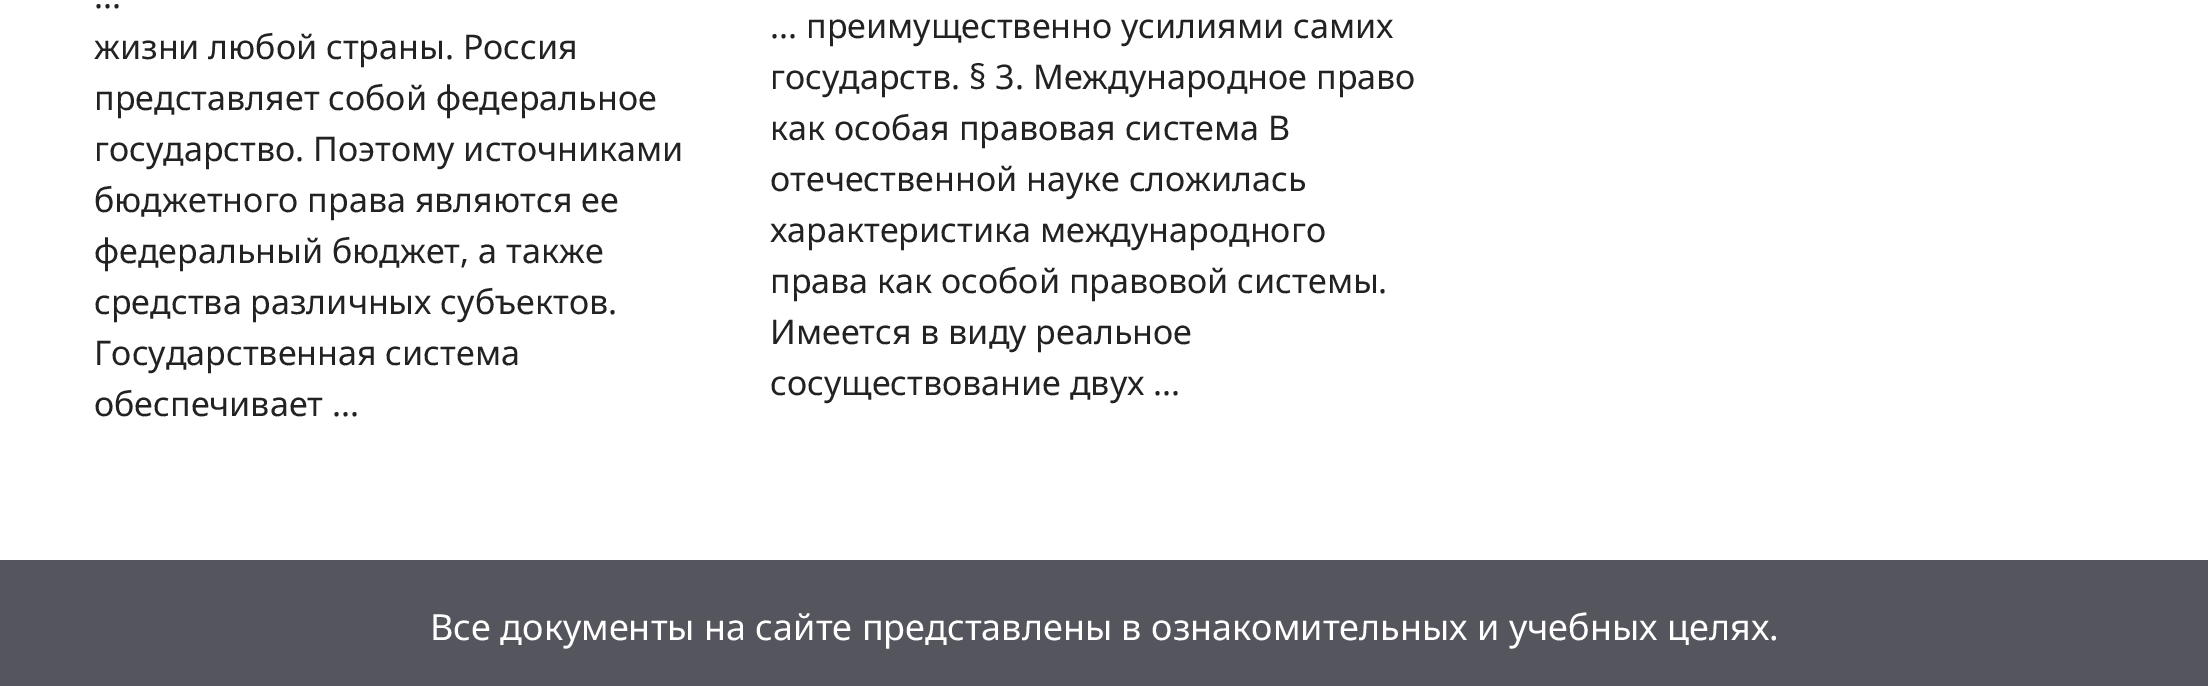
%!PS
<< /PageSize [2208 686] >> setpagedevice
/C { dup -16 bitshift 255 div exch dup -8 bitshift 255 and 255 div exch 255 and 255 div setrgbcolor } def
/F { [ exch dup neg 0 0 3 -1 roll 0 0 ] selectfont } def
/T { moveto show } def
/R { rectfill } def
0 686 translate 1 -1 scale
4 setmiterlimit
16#FFFFFF C
0 0 2208 686 R
/NotoSans-Regular 34 F
16#222222 C
(...) 94 8 T
(жизни любой страны. Россия) 94 59 T
(представляет собой федеральное) 94 110 T
(государство. Поэтому источниками) 94 161 T
(бюджетного права являются ее) 94 212 T
(федеральный бюджет, а также) 94 263 T
(средства различных субъектов.) 94 314 T
(Государственная система) 94 365 T
(обеспечивает ...) 94 416 T
(... преимущественно усилиями самих) 770 38 T
(государств. § 3. Международное право) 770 89 T
(как особая правовая система В) 770 140 T
(отечественной науке сложилась) 770 191 T
(характеристика международного) 770 242 T
(права как особой правовой системы.) 770 293 T
(Имеется в виду реальное) 770 344 T
(сосуществование двух ...) 770 395 T
16#55555E C
0 560 2208 126 R
/NotoSans-Regular 36 F
16#FFFFFF C
(Все документы на сайте представлены в ознакомительных и учебных целях.) 430 640 T
showpage
